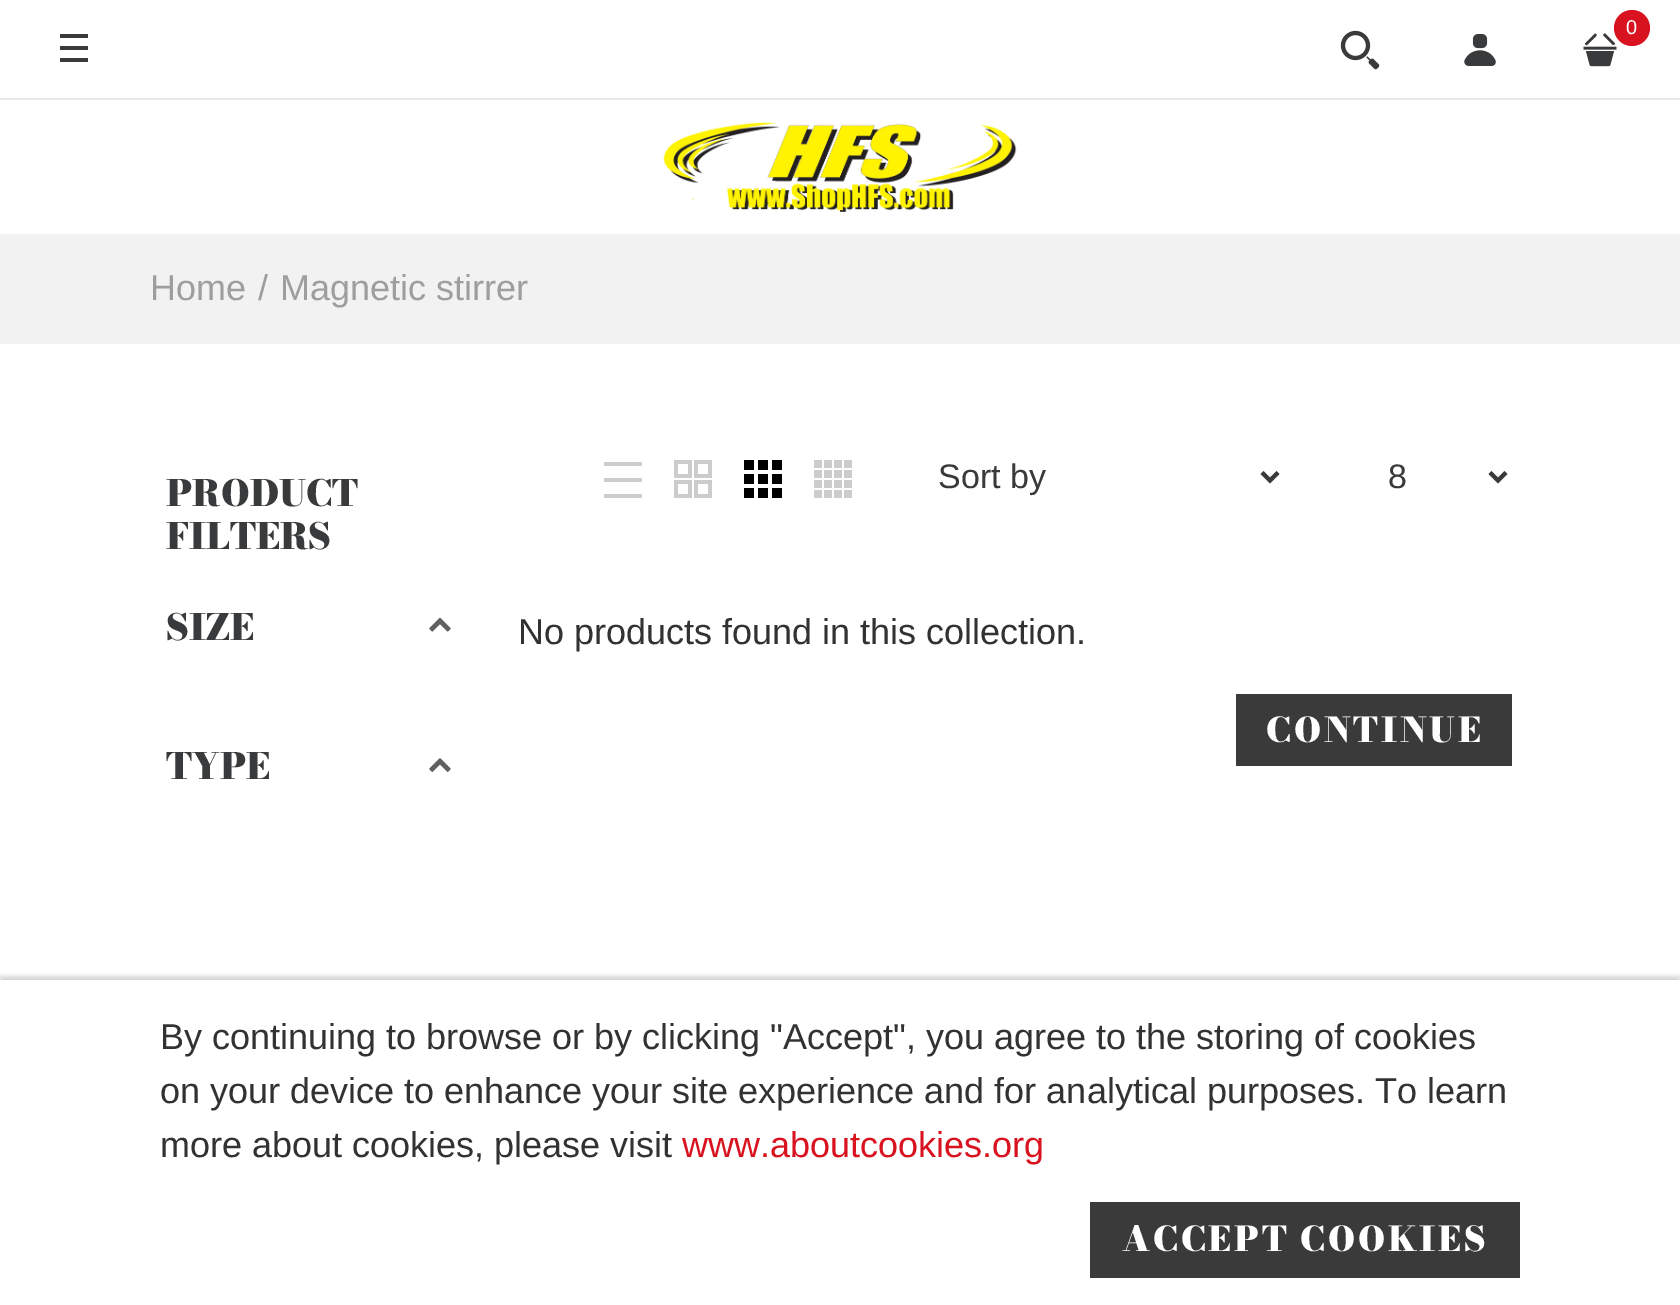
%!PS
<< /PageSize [1680 1305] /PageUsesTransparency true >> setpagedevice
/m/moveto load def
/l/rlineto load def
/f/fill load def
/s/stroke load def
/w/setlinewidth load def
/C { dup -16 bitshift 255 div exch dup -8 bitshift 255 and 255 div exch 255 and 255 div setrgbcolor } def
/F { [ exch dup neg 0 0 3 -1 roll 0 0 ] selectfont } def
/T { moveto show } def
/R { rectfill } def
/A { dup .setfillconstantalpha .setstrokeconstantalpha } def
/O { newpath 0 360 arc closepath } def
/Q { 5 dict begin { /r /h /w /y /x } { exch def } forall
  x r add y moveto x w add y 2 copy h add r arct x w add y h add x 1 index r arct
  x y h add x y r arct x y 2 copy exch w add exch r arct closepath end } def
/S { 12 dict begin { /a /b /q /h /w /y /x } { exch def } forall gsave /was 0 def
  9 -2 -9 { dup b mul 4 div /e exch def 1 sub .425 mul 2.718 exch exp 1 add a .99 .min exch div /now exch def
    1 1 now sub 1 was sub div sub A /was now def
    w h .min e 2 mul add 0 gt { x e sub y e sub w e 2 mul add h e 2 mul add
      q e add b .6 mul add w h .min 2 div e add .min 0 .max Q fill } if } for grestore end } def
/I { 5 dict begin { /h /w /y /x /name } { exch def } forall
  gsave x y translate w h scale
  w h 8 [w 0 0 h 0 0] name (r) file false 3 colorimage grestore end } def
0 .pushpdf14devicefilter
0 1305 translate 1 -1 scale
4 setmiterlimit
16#FFFFFF C
0 0 1680 1305 R
16#E7E7E7 C
0 98 1680 2 R
(1.rgb) 1583 33 34 34 I
16#D9121F C
1632 28 18 O f
/LiberationSans-Regular 20 F
16#FFFFFF C
(0) 1626 34 T
16#393A3B C
60 46 28 4 R
60 34 28 4 R
60 58 28 4 R
(2.rgb) 1340 30 40 40 I
(3.rgb) 1464 34 32 32 I
(4.rgb) 663 122 354 90 I
16#F2F2F2 C
0 234 1680 110 R
/LiberationSans-Regular 36 F
16#9E9E9E C
(Home) 150 300 T
(/) 258 300 T
(Magnetic stirrer) 280 300 T
/BodoniModa-Black 36 F
16#393A3B C
(PRODUCT) 166 506 T
(FILTERS) 166 549 T
(SIZE) 166 640 T
(5.rgb) 429 617 22 15 I
(TYPE) 166 779 T
(6.rgb) 429 758 22 14 I
16#CCCCCC C
604 462 38 4 R
604 478 38 4 R
604 494 38 4 R
(7.rgb) 674 460 38 38 I
(8.rgb) 744 460 38 38 I
(9.rgb) 814 460 38 38 I
16#393A3B C
4 w
1262 472.5 m 8 8 l 8 -8 l s
/LiberationSans-Regular 34 F
(Sort by) 938 488 T
1490 472.5 m 8 8 l 8 -8 l s
(8) 1388 488 T
/LiberationSans-Regular 36 F
16#333232 C
(No products found in this collection.) 518 644 T
16#3A3A3A C
1236 694 276 72 R
/BodoniModa-Black 34 F
16#FFFFFF C
1266 742 m 2.75 0 (CONTINUE) ashow
16#323232 C
0 976 1680 326 0 2 .2 S
16#FFFFFF C
0 980 1680 325 R
/LiberationSans-Regular 36 F
16#333232 C
(By continuing to browse or by clicking "Accept", you agree to the storing of cookies) 160 1049 T
(on your device to enhance your site experience and for analytical purposes. To learn) 160 1103 T
(more about cookies, please visit) 160 1157 T
16#D9121F C
(www.aboutcookies.org) 682 1157 T
16#3A3A3A C
1090 1202 430 76 R
/BodoniModa-Black 34 F
16#FFFFFF C
1122 1251 m 2.75 0 (ACCEPT COOKIES) ashow
.poppdf14devicefilter showpage
